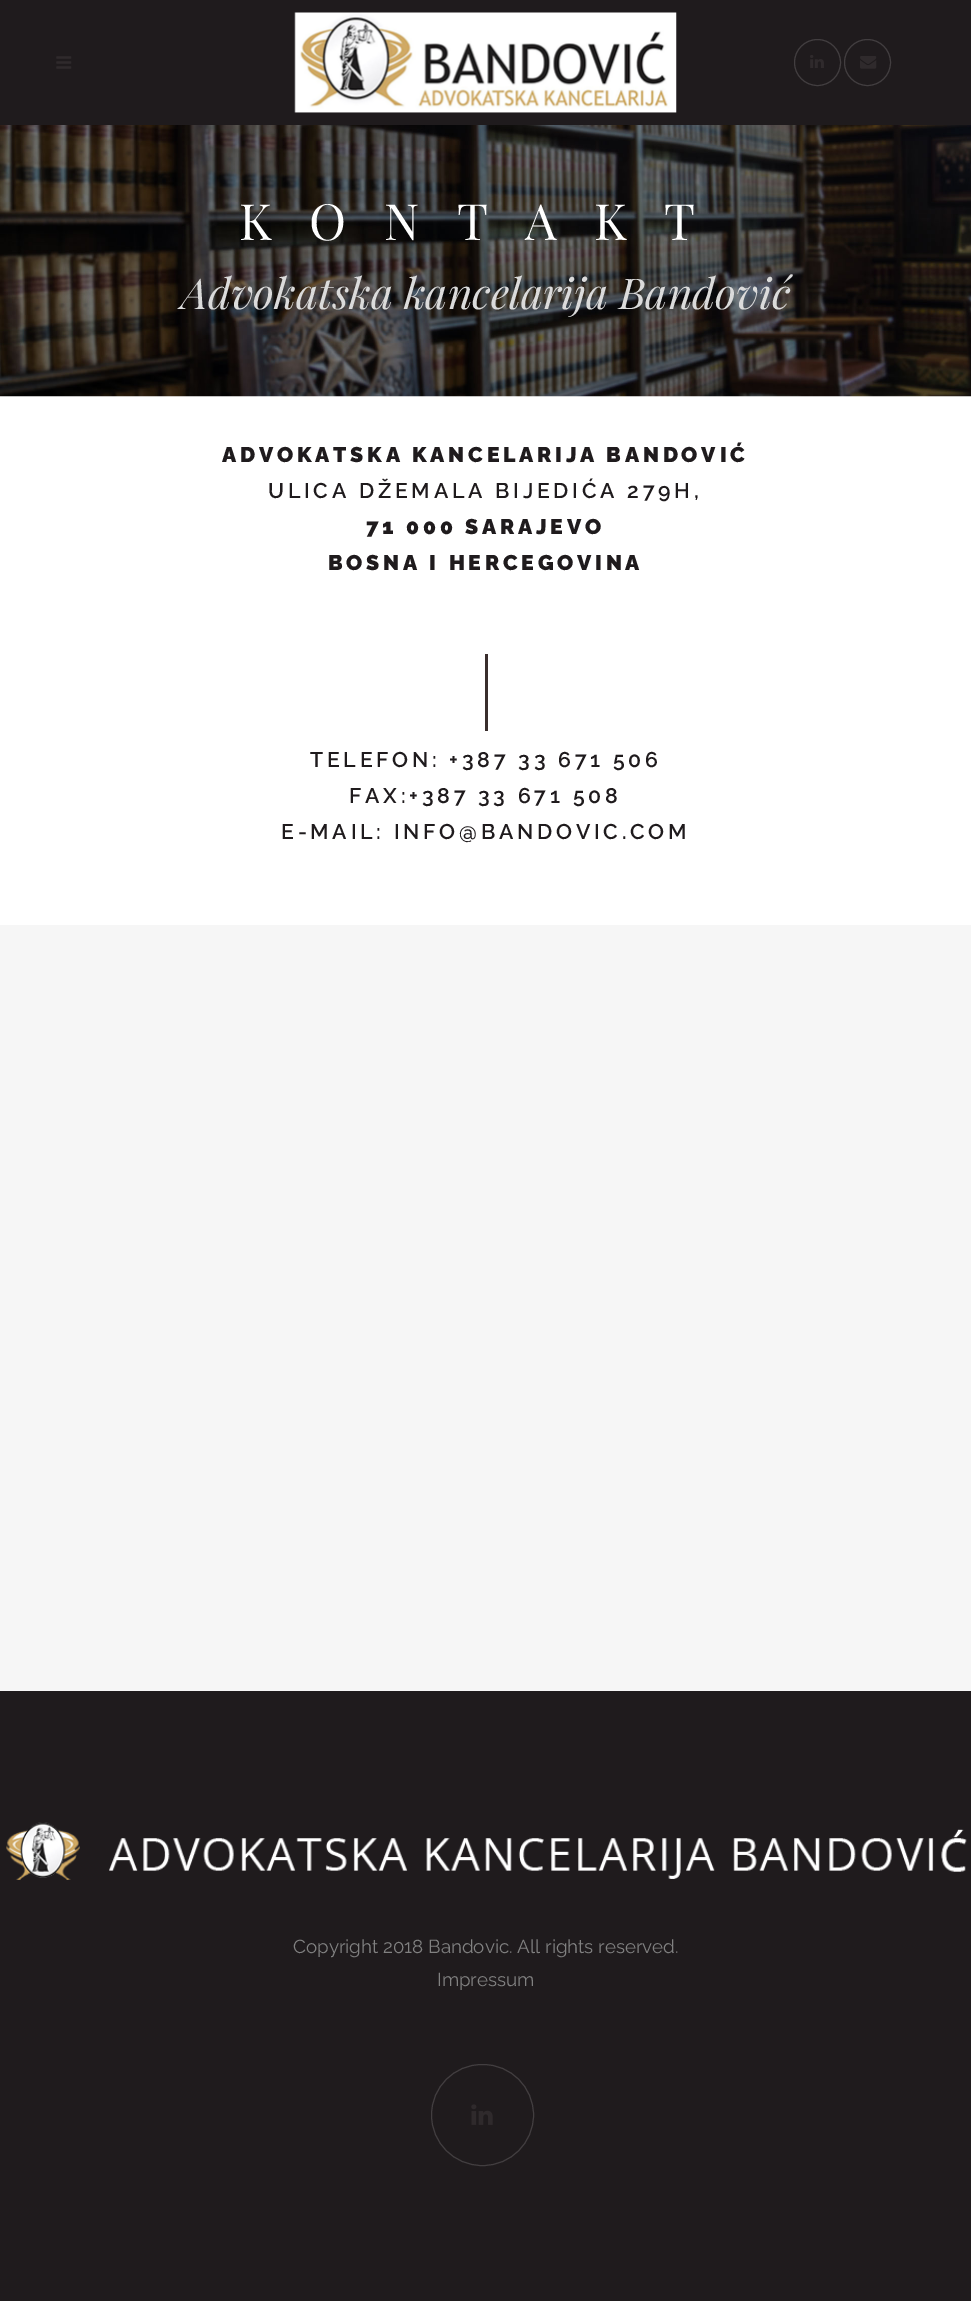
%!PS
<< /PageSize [971 2301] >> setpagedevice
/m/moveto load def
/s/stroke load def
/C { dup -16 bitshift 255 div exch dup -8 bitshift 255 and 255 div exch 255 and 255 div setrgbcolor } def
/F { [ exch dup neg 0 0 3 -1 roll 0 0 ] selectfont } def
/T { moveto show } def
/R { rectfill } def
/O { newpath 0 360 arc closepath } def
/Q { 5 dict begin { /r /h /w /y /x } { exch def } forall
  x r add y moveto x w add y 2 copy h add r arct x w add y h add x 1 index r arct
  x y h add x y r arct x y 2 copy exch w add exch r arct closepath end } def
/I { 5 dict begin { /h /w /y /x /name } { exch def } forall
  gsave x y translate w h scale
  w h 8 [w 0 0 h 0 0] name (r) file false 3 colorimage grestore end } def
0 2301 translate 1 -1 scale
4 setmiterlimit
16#F6F6F6 C
0 0 971 2301 R
16#1F1B1D C
0 0 971 125 R
(1.rgb) 56 56 16 13 I
(2.rgb) 294 12 383 101 I
16#423E40 C
817.5 62.5 23 O s
(3.rgb) 810 55 14 13 I
867.5 62.5 23 O s
(4.rgb) 860 56 17 13 I
16#FFFFFF C
0 396 971 529 R
(5.rgb) 0 125 971 272 I
/PlayfairDisplay-Regular 50 F
239 240 m 37.5 0 (KONTAKT) ashow
/PlayfairDisplay-Italic 42.5 F
16#DBDBDB C
(Advokatska kancelarija Bandović) 181 309 T
/Raleway-Black 21.25 F
16#1F1B1D C
222 462 m 3.75 0 (ADVOKATSKA KANCELARIJA BANDOVIĆ) ashow
/Raleway-SemiBold 21.25 F
268 498 m 3.75 0 (ULICA DŽEMALA BIJEDIĆA 279H,) ashow
/Raleway-Black 21.25 F
366 534 m 3.75 0 (71 000 SARAJEVO) ashow
328 570 m 3.75 0 (BOSNA I HERCEGOVINA) ashow
16#392E2D C
485 654 3 77 R
/Raleway-SemiBold 21.25 F
16#1F1B1D C
310 767 m 3.75 0 (TELEFON: +387 33 671 506) ashow
349 803 m 3.75 0 (FAX:+387 33 671 508) ashow
281 839 m 3.75 0 (E-MAIL: INFO@BANDOVIC.COM) ashow
0 1691 971 610 R
(6.rgb) 6 1822 961 58 I
/Raleway-Regular 18.75 F
16#818181 C
(Copyright 2018 Bandovic. All rights reserved.) 293 1953 T
(Impressum) 437 1986 T
16#423E40 C
431.5 2064.5 102 101 50.5 Q s
(7.rgb) 471 2104 22 21 I
showpage
